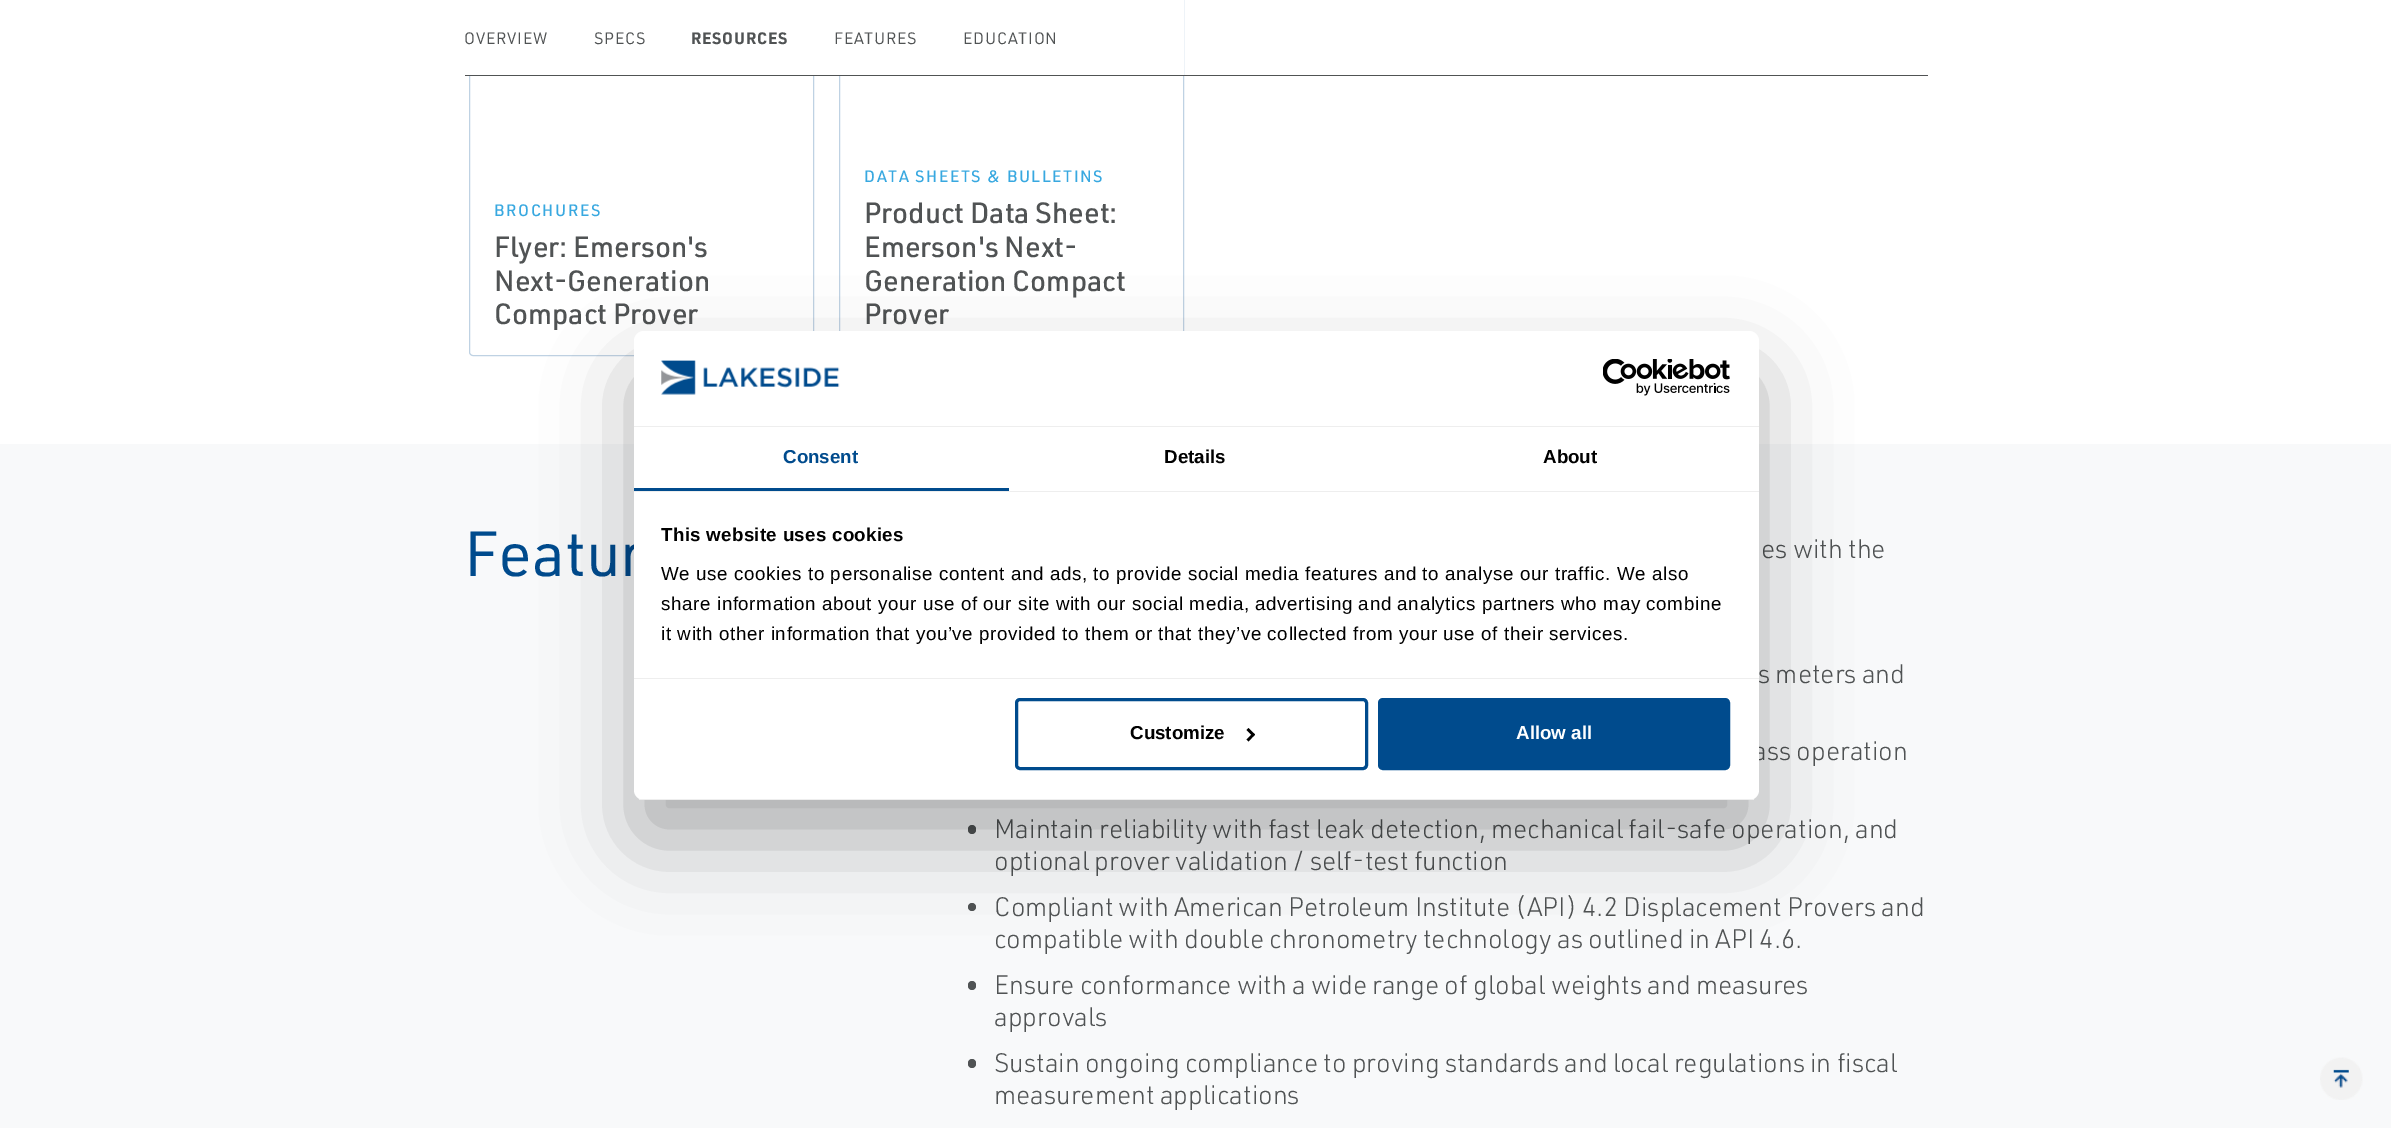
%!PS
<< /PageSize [2391 1128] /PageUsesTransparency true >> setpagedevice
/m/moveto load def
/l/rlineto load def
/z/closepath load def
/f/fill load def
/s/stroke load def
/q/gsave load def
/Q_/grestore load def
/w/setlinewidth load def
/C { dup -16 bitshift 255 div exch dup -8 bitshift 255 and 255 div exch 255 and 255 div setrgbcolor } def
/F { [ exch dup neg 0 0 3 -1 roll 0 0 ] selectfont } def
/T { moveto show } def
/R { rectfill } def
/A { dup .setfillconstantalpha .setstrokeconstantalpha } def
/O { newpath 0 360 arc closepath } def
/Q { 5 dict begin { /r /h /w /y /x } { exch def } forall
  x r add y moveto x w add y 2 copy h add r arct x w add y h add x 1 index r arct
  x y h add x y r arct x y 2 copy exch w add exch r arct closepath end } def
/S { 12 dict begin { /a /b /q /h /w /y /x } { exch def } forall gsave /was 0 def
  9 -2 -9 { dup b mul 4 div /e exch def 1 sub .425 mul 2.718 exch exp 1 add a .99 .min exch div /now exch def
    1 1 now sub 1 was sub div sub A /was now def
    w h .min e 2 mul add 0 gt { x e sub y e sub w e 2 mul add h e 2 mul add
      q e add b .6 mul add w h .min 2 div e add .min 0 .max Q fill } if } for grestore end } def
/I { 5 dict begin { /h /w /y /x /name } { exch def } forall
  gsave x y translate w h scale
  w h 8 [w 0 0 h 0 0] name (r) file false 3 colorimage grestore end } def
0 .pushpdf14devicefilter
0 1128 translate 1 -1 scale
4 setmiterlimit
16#FFFFFF C
0 0 2391 1128 R
16#BFD2E3 C
469.5 -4.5 344 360 3.5 Q s
839.5 -.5 344 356 rectstroke
16#FFFFFF C
469 0 715 76 R
16#505354 C
465 75 1463 1 R
/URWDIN-Regular 16.25 F
464 44 m .75 0 (OVERVIEW) ashow
594 44 m .75 0 (SPECS) ashow
/URWDIN-Bold 16.25 F
691 44 m .75 0 (RESOURCES) ashow
/URWDIN-Regular 16.25 F
834 44 m .75 0 (FEATURES) ashow
963 44 m .75 0 (EDUCATION) ashow
/URWDIN-Medium 16.25 F
16#38A8E0 C
494 216 m 1.6 0 (BROCHURES) ashow
/URWDIN-Medium 28.75 F
16#505354 C
(Flyer: Emerson's) 494 257 T
(Next-Generation) 494 291 T
q
495 229 293 101 rectclip
(Compact Prover) 494 324 T
Q_
/URWDIN-Medium 16.25 F
16#38A8E0 C
864 182 m 1.6 0 (DATA SHEETS & BULLETINS) ashow
/URWDIN-Medium 28.75 F
16#505354 C
(Product Data Sheet:) 864 223 T
(Emerson's Next-) 864 257 T
(Generation Compact) 864 291 T
(Prover) 864 324 T
16#F8F9FA C
0 444 2391 684 R
/URWDIN-Regular 62.5 F
16#004B8D C
(Featur) 464 576 T
/URWDIN-Light 26.25 F
16#505354 C
(es with the) 1761 558 T
(s meters and) 1758 683 T
(ass operation) 1753 760 T
968 825 8 9 4 Q f
(Maintain reliability with fast leak detection, mechanical fail-safe operation, and) 994 838 T
(optional prover validation / self-test function) 994 870 T
972 907 4 O f
(Compliant with American Petroleum Institute \(API\) 4.2 Displacement Provers and) 994 916 T
(compatible with double chronometry technology as outlined in API 4.6.) 994 948 T
968 981 8 9 4 Q f
(Ensure conformance with a wide range of global weights and measures) 994 994 T
(approvals) 994 1026 T
968 1059 8 9 4 Q f
(Sustain ongoing compliance to proving standards and local regulations in fiscal) 994 1072 T
(measurement applications) 994 1104 T
(1.rgb) 2320 1057 43 43 I
16#000000 C
634 371 1125 469 10 42.5 .3 S
16#FFFFFF C
634 331 1125 469 10 Q f
16#EEEEEE C
634 426 1125 1 R
(2.rgb) 661 360 179 35 I
(3.rgb) 1603 359 127 37 I
634 491 1125 1 R
16#004B8D C
634 488 375 3 R
/LiberationSans-Bold 18.75 F
(Consent) 783 463 T
16#000000 C
(Details) 1164 463 T
(About) 1543 463 T
16#EEEEEE C
634 678 1125 1 R
16#000000 C
661 541 m .3 0 (This website uses cookies) ashow
/LiberationSans-Regular 18.75 F
661 580 m .62 0 (We use cookies to personalise content and ads, to provide social media features and to analyse our traffic. We also) ashow
661 610 m .62 0 (share information about your use of our site with our social media, advertising and analytics partners who may combine) ashow
661 640 m .62 0 (it with other information that you’ve provided to them or that they’ve collected from your use of their services.) ashow
q
634 331 1125 469 10 Q clip newpath
16#EEEEEE C
634 799 1125 1 R
Q_
16#004B8D C
3 w
1016.5 699.5 350 69 3.5 Q s
/LiberationSans-Bold 18.75 F
16#000000 C
(Customize) 1130 739 T
1248.5 728 m 6.5 6.5 l -2 2 l -6.5 -6.5 l z f
1253 733 m 2 1.5 l -6.5 7 l -2 -2 l z f
16#004B8D C
1379.5 699.5 349 69 3.5 Q q f Q_
s
16#FFFFFF C
(Allow all) 1516 739 T
.poppdf14devicefilter showpage
